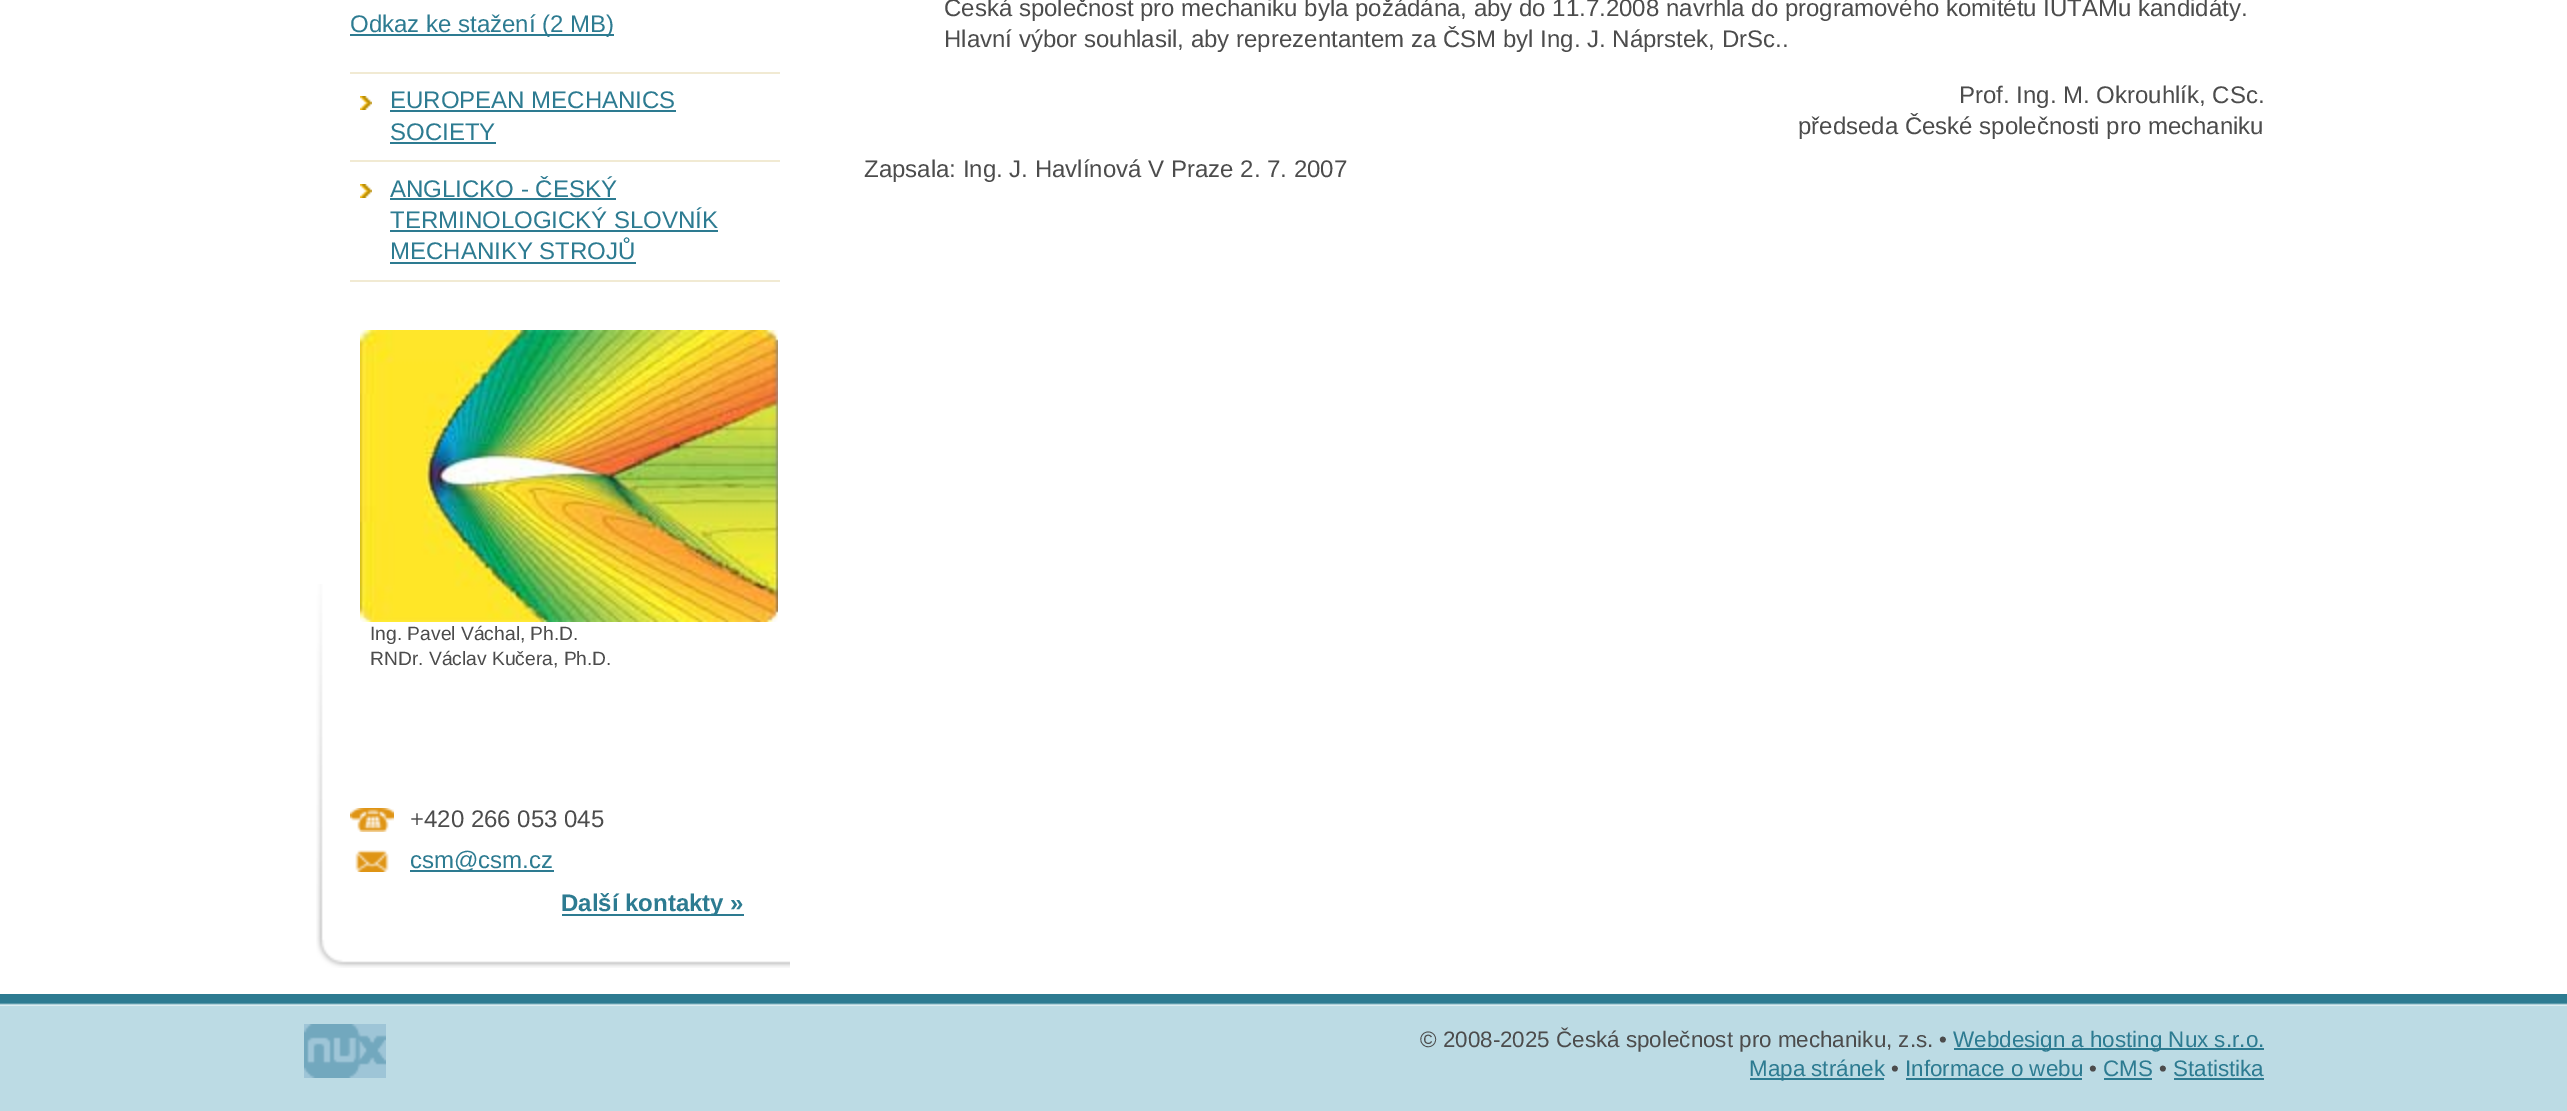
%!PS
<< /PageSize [2567 1111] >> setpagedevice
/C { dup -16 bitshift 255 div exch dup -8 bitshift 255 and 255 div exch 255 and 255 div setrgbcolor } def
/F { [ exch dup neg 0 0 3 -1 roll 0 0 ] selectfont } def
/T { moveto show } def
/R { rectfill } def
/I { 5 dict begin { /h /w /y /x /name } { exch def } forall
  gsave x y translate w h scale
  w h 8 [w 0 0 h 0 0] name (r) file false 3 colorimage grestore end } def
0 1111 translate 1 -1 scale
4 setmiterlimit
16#BCDBE4 C
0 0 2567 1111 R
16#FFFFFF C
0 0 2567 994 R
(1.rgb) 316 584 474 384 I
16#F1EAD3 C
350 72 430 2 R
16#2D7B91 C
350 34 264 2 R
/LiberationSans-Regular 24 F
(Odkaz ke stažení \(2 MB\)) 350 32 T
16#F1EAD3 C
350 160 430 2 R
(2.rgb) 360 96 12 14 I
16#2D7B91 C
(EUROPEAN MECHANICS) 390 108 T
390 110 286 2 R
(SOCIETY) 390 140 T
390 142 106 2 R
16#F1EAD3 C
350 280 430 2 R
(2.rgb) 360 184 12 14 I
16#2D7B91 C
(ANGLICKO - ČESKÝ) 390 197 T
390 198 226 2 R
(TERMINOLOGICKÝ SLOVNÍK) 390 228 T
390 230 328 2 R
(MECHANIKY STROJŮ) 390 259 T
390 262 246 2 R
(3.rgb) 360 330 418 292 I
/LiberationSans-Regular 19.25 F
16#4C4C4C C
(Ing. Pavel Váchal, Ph.D.) 370 640 T
(RNDr. Václav Kučera, Ph.D.) 370 665 T
(4.rgb) 350 808 44 24 I
/LiberationSans-Regular 24 F
(+420 266 053 045) 410 827 T
(5.rgb) 355 850 34 22 I
16#2D7B91 C
410 870 144 2 R
(csm@csm.cz) 410 868 T
562 914 182 2 R
/LiberationSans-Bold 24 F
(Další kontakty ») 561 911 T
/LiberationSans-Regular 24 F
16#4C4C4C C
(Česká společnost pro mechaniku byla požádána, aby do 11.7.2008 navrhla do programového komitétu IUTAMu kandidáty.) 944 16 T
(Hlavní výbor souhlasil, aby reprezentantem za ČSM byl Ing. J. Náprstek, DrSc..) 944 47 T
(Prof. Ing. M. Okrouhlík, CSc.) 1959 103 T
(předseda České společnosti pro mechaniku) 1798 134 T
(Zapsala: Ing. J. Havlínová V Praze 2. 7. 2007) 864 177 T
(6.rgb) 0 994 2567 12 I
16#91BBD1 C
304 1024 82 54 R
(7.rgb) 304 1024 82 54 I
/LiberationSans-Regular 22.4 F
16#4C4C4C C
(© 2008-2025 Česká společnost pro mechaniku, z.s. •) 1420 1047 T
16#2D7B91 C
1954 1048 310 2 R
(Webdesign a hosting Nux s.r.o.) 1953 1047 T
1750 1078 134 2 R
(Mapa stránek) 1749 1076 T
16#4C4C4C C
(•) 1891 1076 T
16#2D7B91 C
(Informace o webu) 1905 1076 T
1906 1078 176 2 R
16#4C4C4C C
(•) 2089 1076 T
16#2D7B91 C
(CMS) 2103 1076 T
2104 1078 48 2 R
16#4C4C4C C
(•) 2159 1076 T
16#2D7B91 C
(Statistika) 2173 1076 T
2174 1078 90 2 R
showpage
